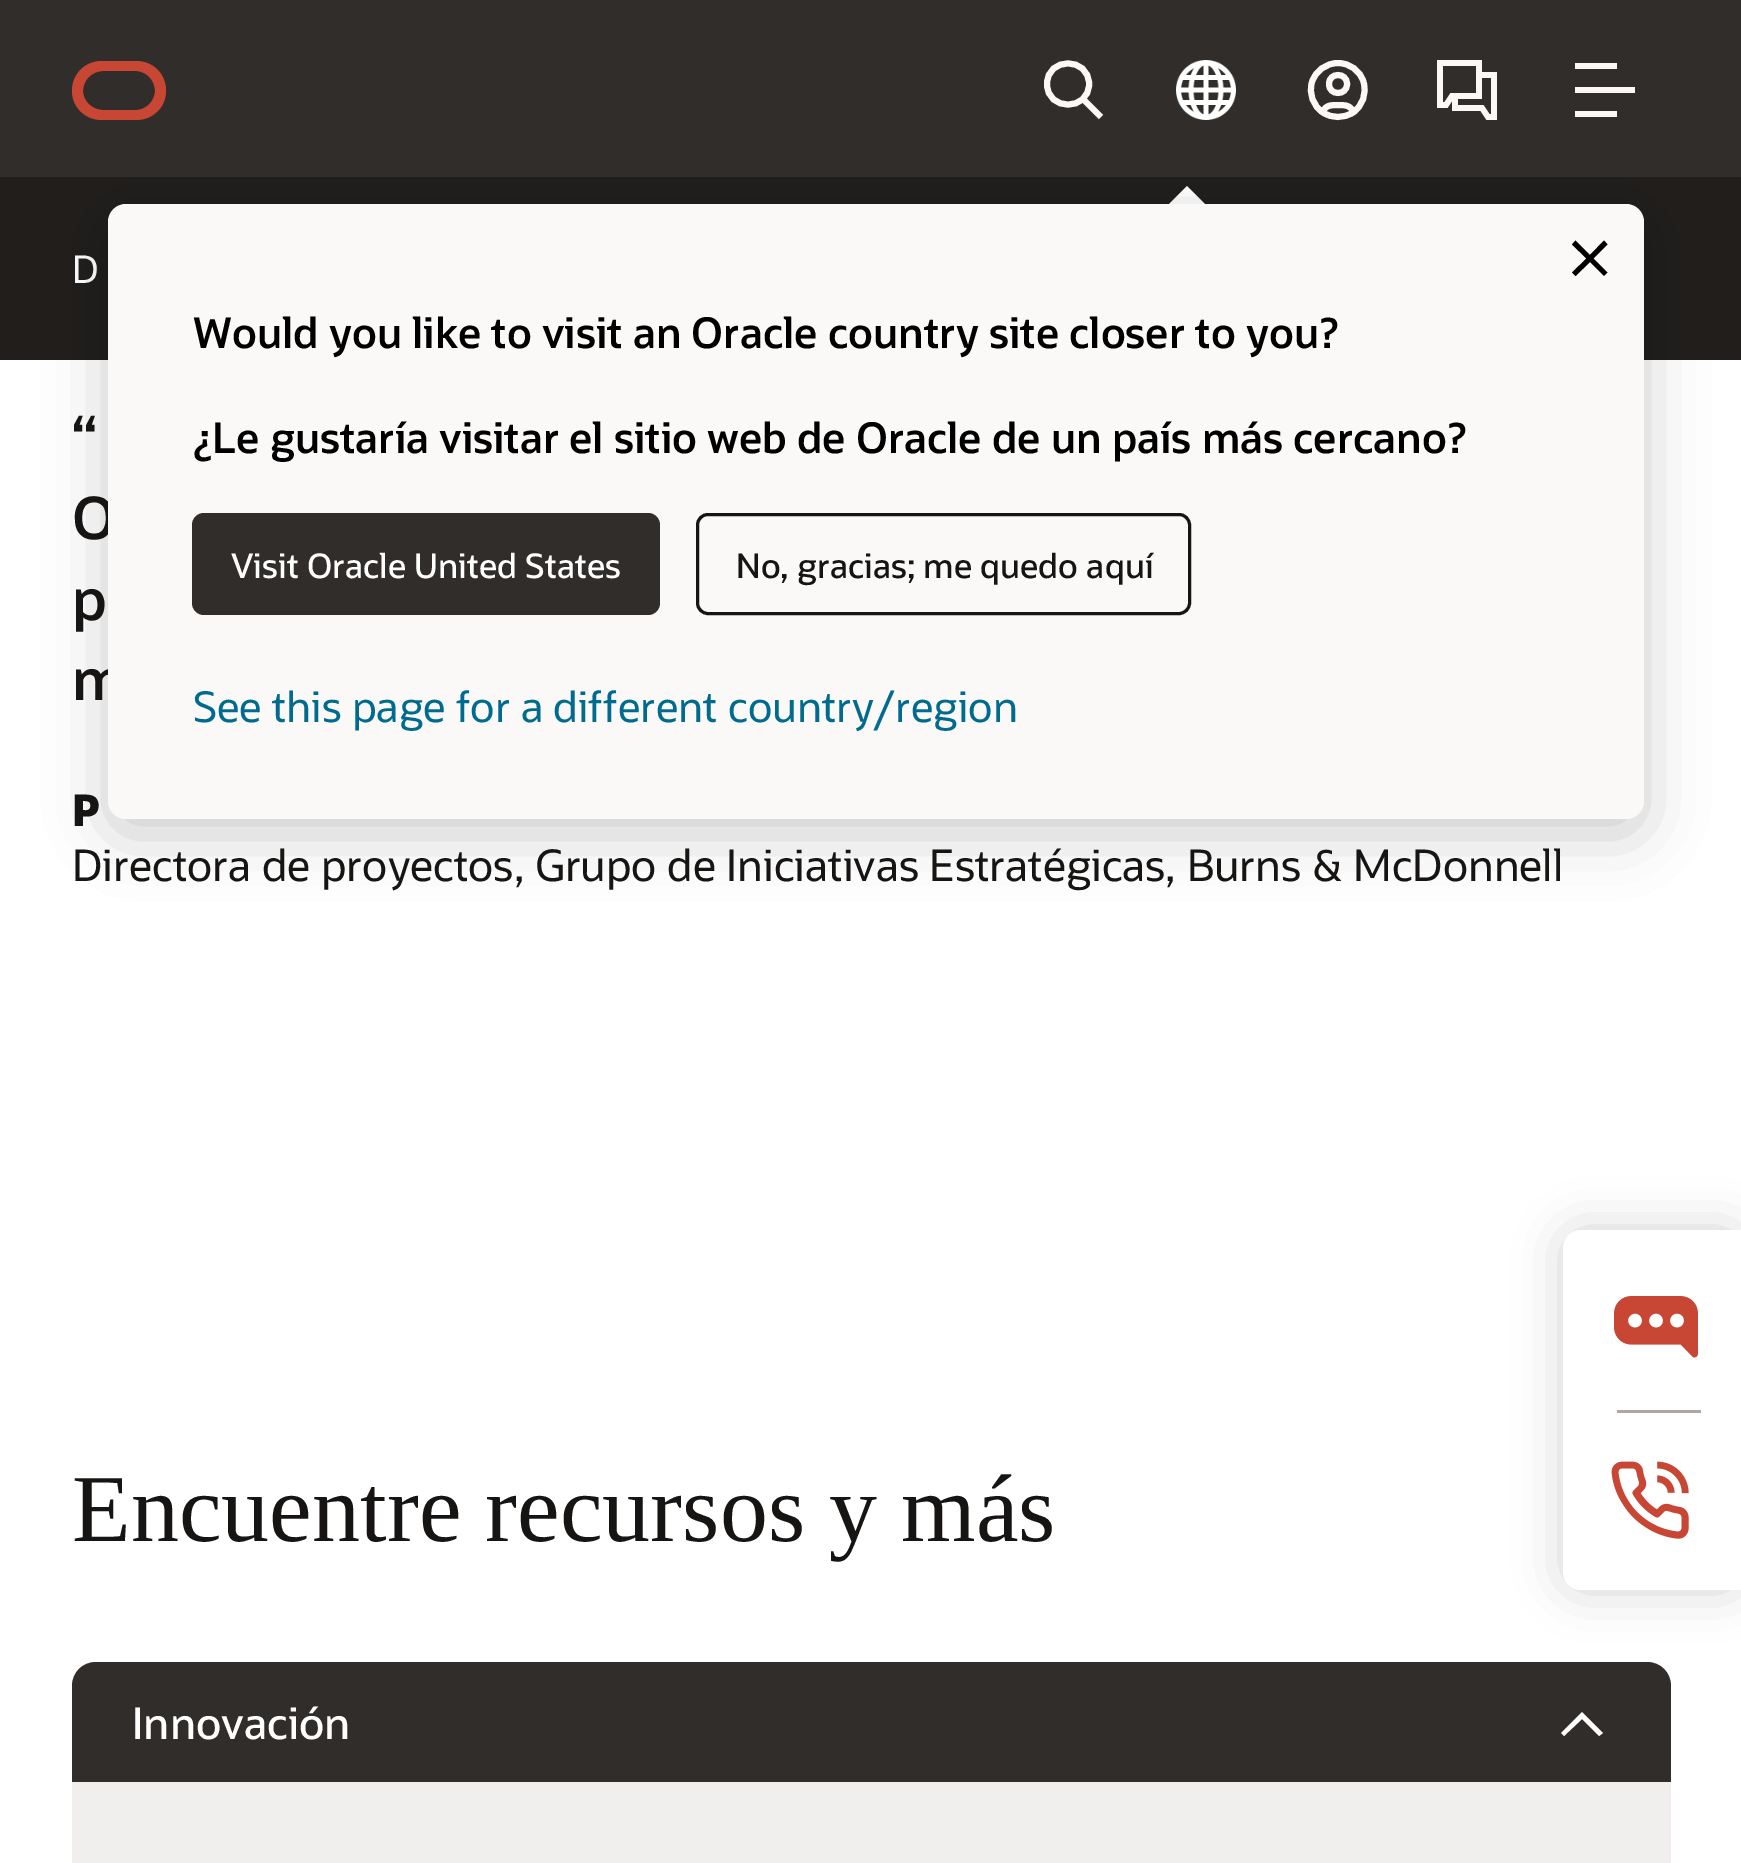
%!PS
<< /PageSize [1741 1863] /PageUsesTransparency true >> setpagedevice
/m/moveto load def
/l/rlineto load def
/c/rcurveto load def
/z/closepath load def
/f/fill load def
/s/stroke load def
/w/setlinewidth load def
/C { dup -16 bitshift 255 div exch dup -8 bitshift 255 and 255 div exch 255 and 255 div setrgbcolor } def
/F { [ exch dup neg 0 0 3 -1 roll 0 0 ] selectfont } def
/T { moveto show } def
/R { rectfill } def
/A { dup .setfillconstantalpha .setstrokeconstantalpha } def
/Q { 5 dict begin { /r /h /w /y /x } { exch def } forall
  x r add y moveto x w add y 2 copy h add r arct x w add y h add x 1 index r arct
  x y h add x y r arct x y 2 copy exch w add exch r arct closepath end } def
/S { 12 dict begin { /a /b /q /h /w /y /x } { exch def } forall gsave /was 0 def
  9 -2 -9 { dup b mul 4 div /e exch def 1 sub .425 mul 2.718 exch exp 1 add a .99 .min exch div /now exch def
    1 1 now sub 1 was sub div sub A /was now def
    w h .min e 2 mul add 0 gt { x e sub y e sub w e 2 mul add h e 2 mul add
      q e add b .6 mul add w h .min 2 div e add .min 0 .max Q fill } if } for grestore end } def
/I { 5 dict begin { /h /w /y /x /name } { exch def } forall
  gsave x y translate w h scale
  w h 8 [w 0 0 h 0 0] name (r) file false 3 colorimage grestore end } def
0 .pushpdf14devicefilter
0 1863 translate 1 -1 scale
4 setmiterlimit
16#FFFFFF C
0 0 1741 1863 R
16#211E1C C
0 180 1741 180 R
/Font-Regular 38 F
16#FFFFFF C
(D) 72 283 T
16#312D2A C
0 0 1741 177 R
16#201E1C C
0 177 1741 3 R
16#C74634 C
102 120 m -17 0 -30 -13 -30 -29 c 0 -17 13 -30 30 -30 c 34 0 l 17 0 30 13 30 30 c 0 16 -13 29 -30 29 c -34 0 l 136 110 m 10 0 19 -9 19 -19 c 0 -11 -9 -20 -19 -20 c -33 0 l -11 0 -20 9 -20 20 c 0 10 9 19 20 19 c 33 0 l f
16#FBF9F8 C
6 w
1083 99 m 18 18 l 1089 84 m 0 27.5 -42 27.5 -42 0 c 0 -27.5 42 -27.5 42 0 c z s
1353 112.5 m -1.5 -7.5 -9 -7.5 -15 -7.5 c -6 0 -13.5 0 -15 7.5 c 1353 112.5 m 9.5 -6.5 14 -19 10.5 -30.5 c -3 -11 -13.5 -19 -25.5 -19 c -12 0 -22.5 8 -26 19 c -3.5 11.5 1 24 11 30.5 c 1353 112.5 m -9.5 6 -21 6 -30 0 c 1347 84 m 0 12 -18 12 -18 0 c 0 -12 18 -12 18 0 c z s
(1.rgb) 1437 60 60 60 I
1575 63 42 6 R
1575 87 60 6 R
1575 111 42 6 R
(2.rgb) 1176 60 60 60 I
16#FFFFFF C
1235 234 m -96 0 l 48 -48 l z f
16#000000 C
108 219 1536 615 18 30 .2 S
/Font-SemiBold 58 F
16#161513 C
(O) 72 539 T
(m) 72 700 T
16#FBF9F8 C
108 204 1536 615 18 Q f
16#000000 C
1586.5 258.5 m -14.5 -14 l 3.5 -4 l 14.5 14.5 l 14 -14.5 l 3.5 4 l -14 14 l 14 14 l -3.5 3.5 l -14 -14 l -14.5 14 l -3.5 -3.5 l z f
/Font-SemiBold 42 F
(Would you like to visit an Oracle country site closer to you?) 193 348 T
(¿Le gustaría visitar el sitio web de Oracle de un país más cercano?) 193 453 T
16#312D2A C
192 513 468 102 12 Q f
/Font-Medium 33.6 F
16#FFFFFF C
(Visit Oracle United States) 231 578 T
16#161513 C
3 w
697.5 514.5 492 99 10.5 Q s
(No, gracias; me quedo aquí) 736 578 T
/Font-Regular 42 F
16#006B8F C
(See this page for a different country/region) 193 722 T
/Font-SemiBold 58 F
16#161513 C
(“) 72 458 T
(p) 72 620 T
/Font-ExtraBold 43.2 F
(P) 72 826 T
/Font-Regular 43.2 F
(Directora de proyectos, Grupo de Iniciativas Estratégicas, Burns & McDonnell) 72 881 T
/LiberationSerif-Regular 96 F
(Encuentre recursos y más) 72 1541 T
16#312D2A C
96 1662 m 1551 0 l 13.5 0 24 10.5 24 24 c 0 96 l -1599 0 l 0 -96 l 0 -13.5 10.5 -24 24 -24 c z f
/Font-Medium 43.2 F
16#FFFFFF C
(Innovación) 132 1739 T
1582 1719 m 17 17 l 4 -3 l -21 -21 l -21 21 l 3 3 l z f
16#F1EFED C
72 1782 1599 81 R
16#000000 C
1563 1230 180 360 18 24 .17 S
16#FFFFFF C
1581 1230 m 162 0 l 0 360 l -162 0 l -10 0 -18 -8 -18 -18 c 0 -324 l 0 -10 8 -18 18 -18 c z f
(3.rgb) 1614 1296 84 62 I
16#AEA8A2 C
1617 1410 84 3 R
(4.rgb) 1611 1461 78 78 I
.poppdf14devicefilter showpage
